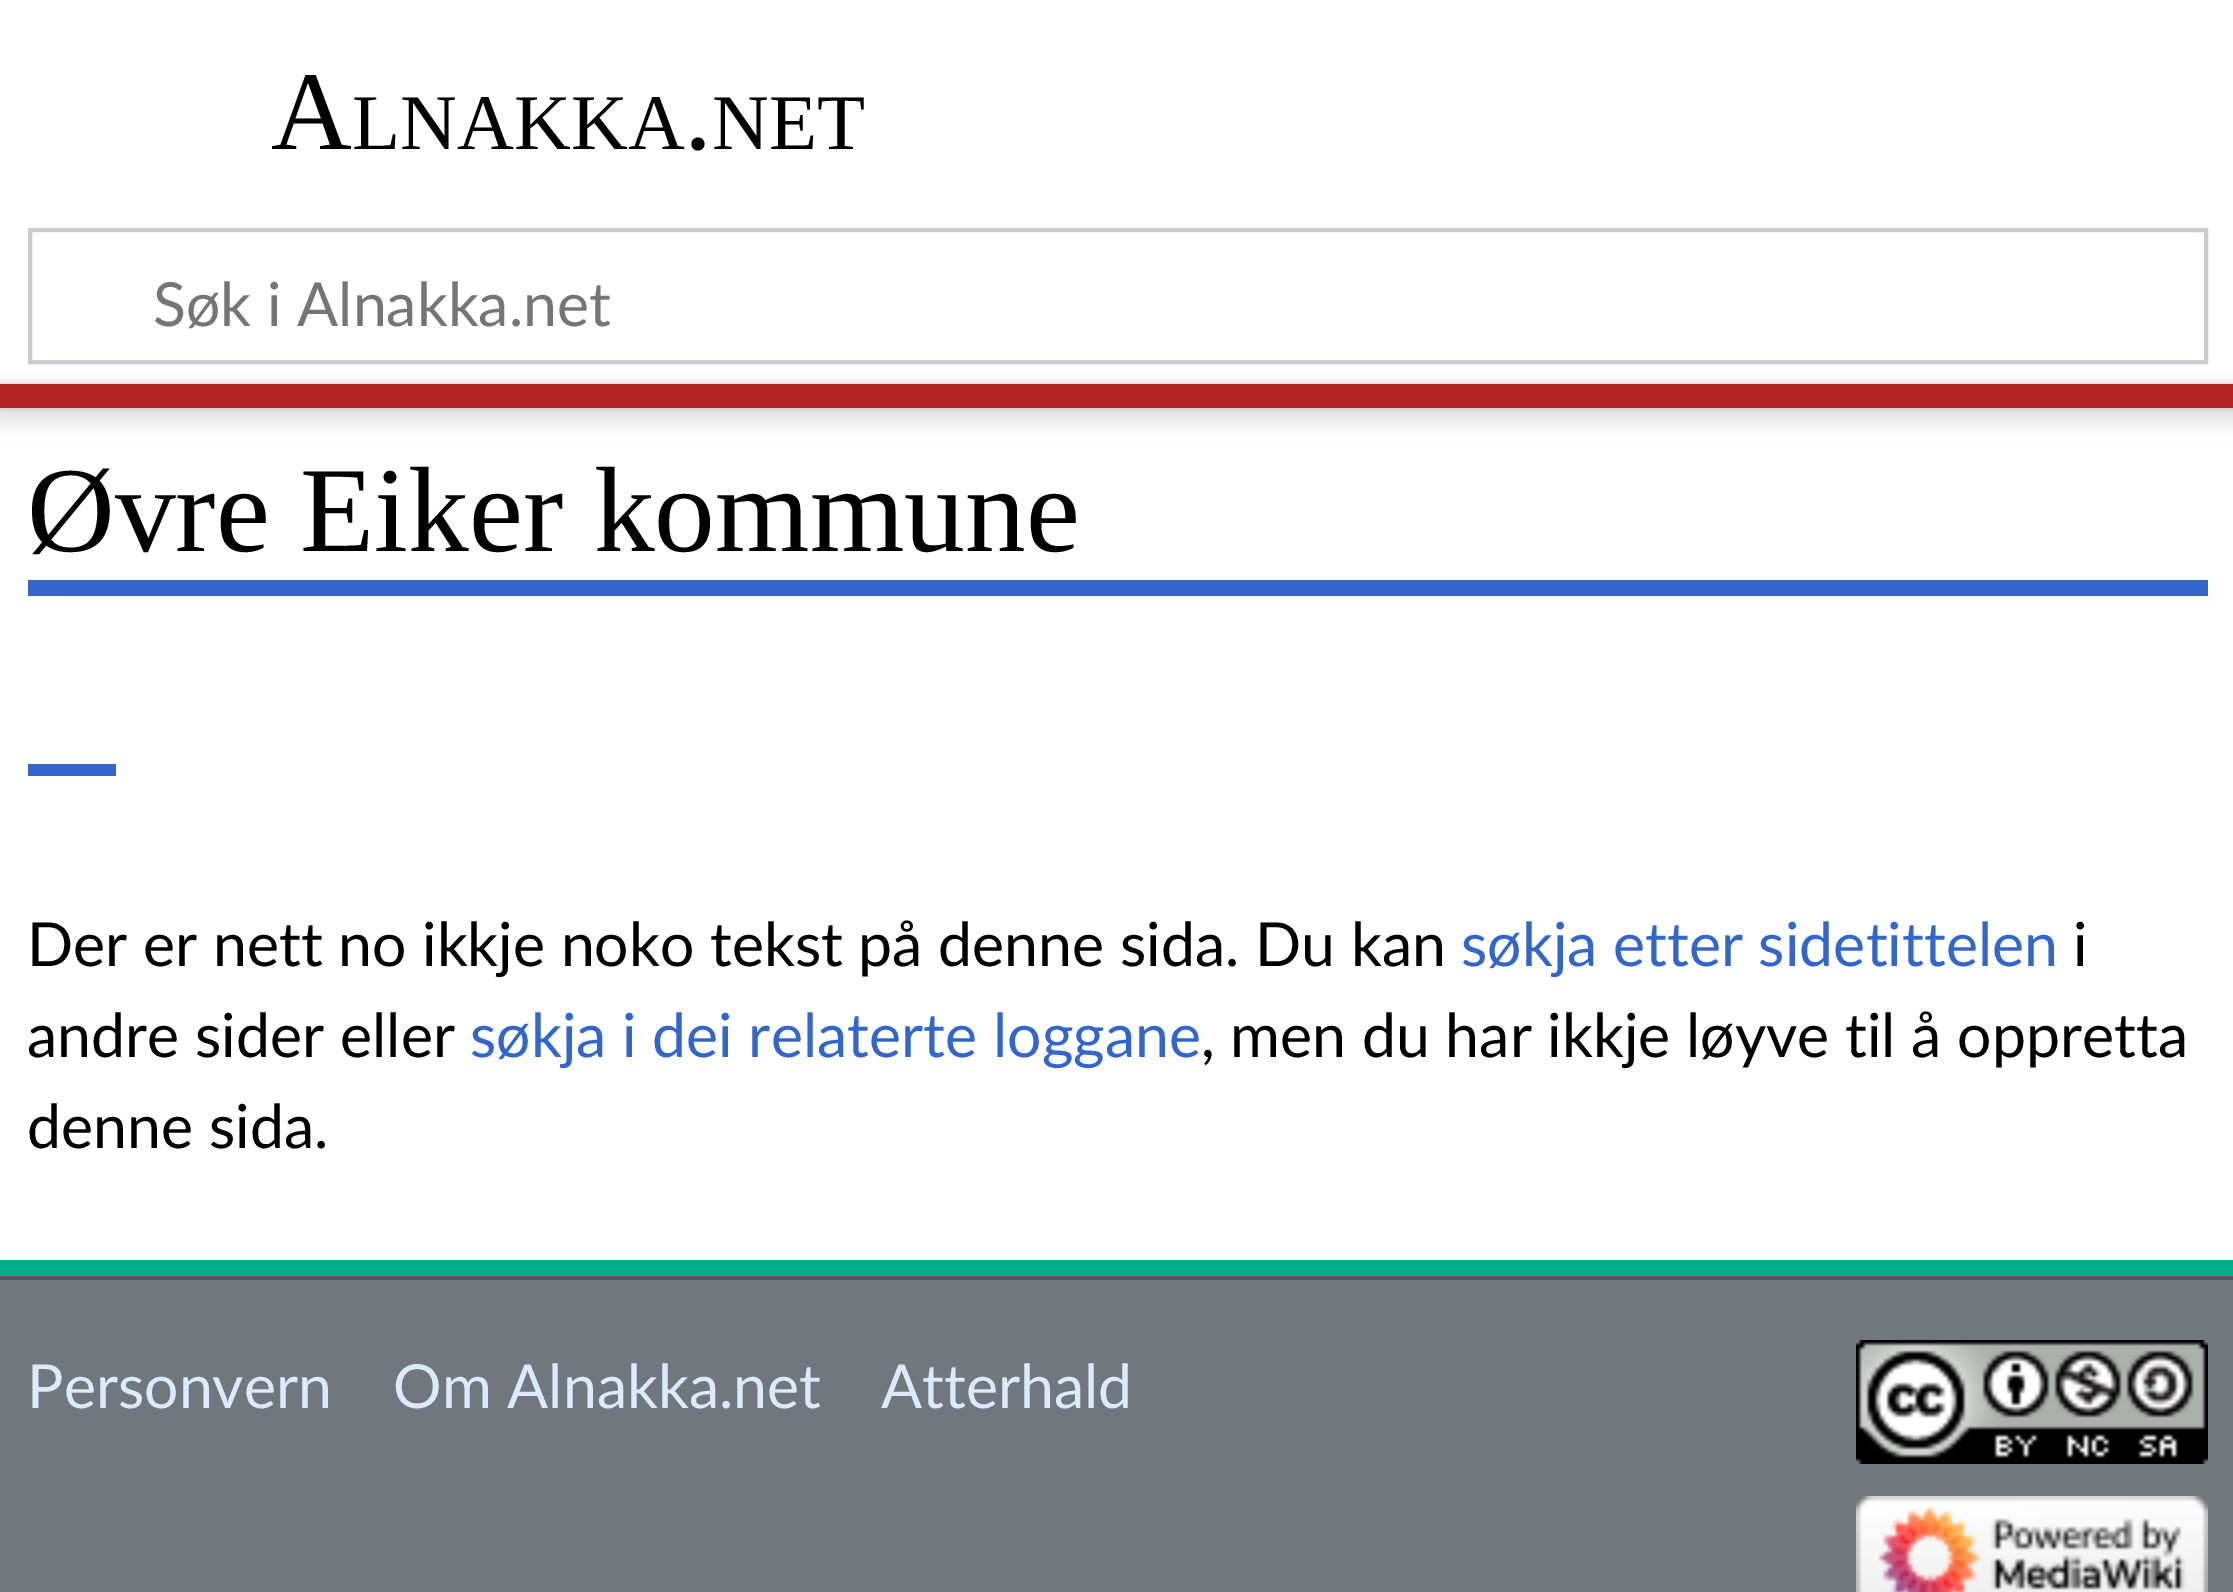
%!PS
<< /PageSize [2233 1592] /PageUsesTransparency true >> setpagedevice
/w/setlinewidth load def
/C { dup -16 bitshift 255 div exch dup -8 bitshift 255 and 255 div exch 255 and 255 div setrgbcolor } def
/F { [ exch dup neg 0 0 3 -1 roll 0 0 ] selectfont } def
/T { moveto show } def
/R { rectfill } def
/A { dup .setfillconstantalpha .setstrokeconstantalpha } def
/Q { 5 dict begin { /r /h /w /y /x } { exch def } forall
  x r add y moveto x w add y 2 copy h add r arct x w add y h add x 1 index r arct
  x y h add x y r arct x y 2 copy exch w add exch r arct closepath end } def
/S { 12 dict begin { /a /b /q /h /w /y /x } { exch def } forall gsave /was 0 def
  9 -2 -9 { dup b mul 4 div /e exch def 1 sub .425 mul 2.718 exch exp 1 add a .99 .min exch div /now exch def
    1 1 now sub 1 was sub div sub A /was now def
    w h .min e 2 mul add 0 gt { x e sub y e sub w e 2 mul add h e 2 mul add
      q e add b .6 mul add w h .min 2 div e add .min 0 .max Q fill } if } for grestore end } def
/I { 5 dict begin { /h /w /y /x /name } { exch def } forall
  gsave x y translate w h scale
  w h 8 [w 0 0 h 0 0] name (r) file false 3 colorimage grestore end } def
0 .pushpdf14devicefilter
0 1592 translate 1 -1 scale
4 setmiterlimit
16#72777D C
0 0 2233 1592 R
16#FFFFFF C
0 0 2233 384 R
/LiberationSerif-Regular 112 F
16#000000 C
(A) 271 149 T
/LiberationSerif-Regular 78.75 F
(LNAKKA) 352 149 T
/LiberationSerif-Regular 112 F
(.) 684 149 T
/LiberationSerif-Regular 78.75 F
(NET) 712 149 T
16#C8CCD1 C
4 w
30 230 2176 132 rectstroke
/Lato-Regular 60.8 F
16#757575 C
(Søk i Alnakka.net) 153 326 T
16#FFFFFF C
0 408 2233 852 R
16#000000 C
0 384 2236 24 0 4 .2 S
-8 388 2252 40 0 6 .07 S
16#B32424 C
0 384 2233 24 R
16#00AF89 C
0 1260 2233 16 R
16#3366CC C
28 580 2180 16 R
/LiberationSerif-Regular 121.5 F
16#000000 C
(Øvre Eiker kommune) 27 551 T
16#3366CC C
28 764 88 12 R
/Lato-Regular 60.8 F
16#000000 C
(Der er nett no ikkje noko tekst på denne sida. Du kan) 27 966 T
16#3366CC C
(søkja etter sidetittelen) 1461 966 T
16#000000 C
(i) 2073 966 T
(andre sider eller) 27 1057 T
16#3366CC C
(søkja i dei relaterte loggane) 470 1057 T
16#000000 C
(, men du har ikkje løyve til å oppretta) 1201 1057 T
(denne sida.) 27 1148 T
16#54595D C
0 1276 2233 4 R
16#DBEAFF C
(Personvern) 27 1408 T
(Om Alnakka.net) 393 1408 T
(Atterhald) 881 1408 T
(1.rgb) 1856 1340 352 124 I
(2.rgb) 1856 1496 352 96 I
.poppdf14devicefilter showpage
